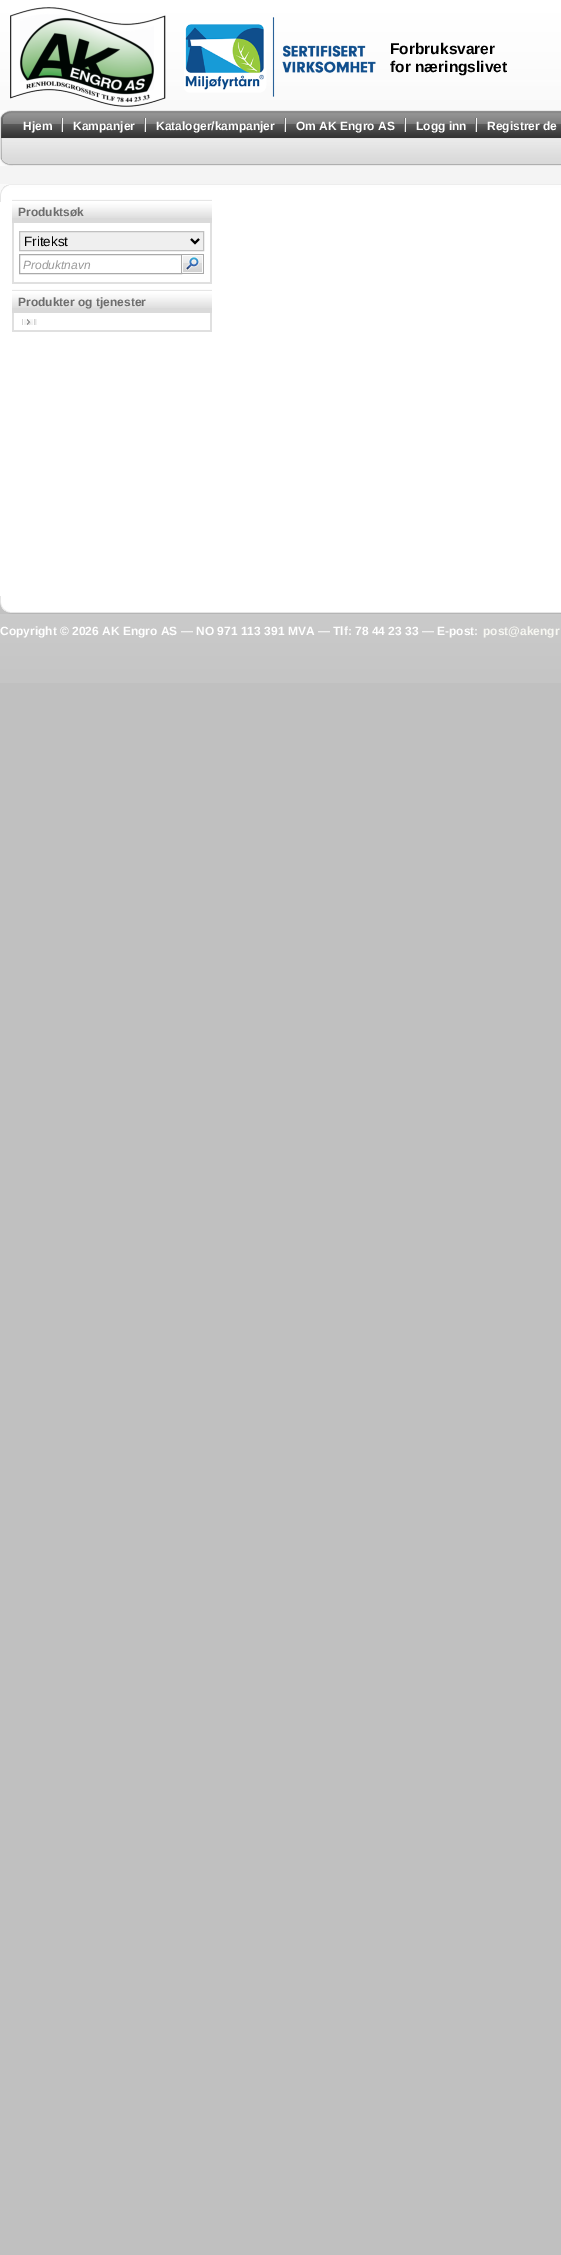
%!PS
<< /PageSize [561 2255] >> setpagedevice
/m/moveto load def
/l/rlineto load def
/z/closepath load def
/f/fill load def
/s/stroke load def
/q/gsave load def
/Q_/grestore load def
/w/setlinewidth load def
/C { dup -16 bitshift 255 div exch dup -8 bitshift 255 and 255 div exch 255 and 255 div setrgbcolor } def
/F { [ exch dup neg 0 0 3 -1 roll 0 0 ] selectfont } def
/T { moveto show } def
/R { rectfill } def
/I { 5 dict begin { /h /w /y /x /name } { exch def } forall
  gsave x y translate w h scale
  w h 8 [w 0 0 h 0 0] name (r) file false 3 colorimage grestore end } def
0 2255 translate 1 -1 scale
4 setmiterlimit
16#C0C0C0 C
0 0 561 2255 R
(1.rgb) 0 0 561 683 I
(2.rgb) 10 7 156 100 I
(3.rgb) 184 17 192 80 I
/LiberationSans-Bold 15.5 F
16#000000 C
(Forbruksvarer) 390 54 T
(for næringslivet) 390 72 T
(4.rgb) 0 110 13 56 I
(5.rgb) 13 110 548 56 I
(6.rgb) 61 118 2 14 I
/LiberationSans-Bold 12 F
16#FFFFFF C
(Hjem) 23 130 T
(6.rgb) 144 118 2 14 I
(Kampanjer) 73 130 T
(6.rgb) 284 118 2 14 I
(Kataloger/kampanjer) 156 130 T
(6.rgb) 404 118 2 14 I
(Om AK Engro AS) 296 130 T
(6.rgb) 475 118 2 14 I
(Logg inn) 416 130 T
(Registrer de) 487 130 T
0 202 561 394 R
(7.rgb) 0 596 561 18 I
(8.rgb) 0 184 561 18 I
16#DADADA C
12 218 200 5 R
(9.rgb) 12 199 200 19 I
16#6D6D6D C
(Produktsøk) 18 216 T
16#E0E0E0 C
210 223 2 61 R
12 282 200 2 R
12 223 2 61 R
16#EFEFEF C
19.5 231.5 m 184 0 l 0 19 l -184 0 l z q f Q_
16#C0C0C0 C
s
16#000000 C
2 w
191 239 m 4 4 l 4 -4 l s
/LiberationSans-Regular 13.5 F
(Fritekst) 24 246 T
16#AAAAAA C
1 w
19.5 254.5 162 19 rectstroke
(10.rgb) 182 254 22 20 I
/LiberationSans-Italic 12 F
16#999999 C
(Produktnavn) 23 269 T
16#DADADA C
12 308 200 5 R
(9.rgb) 12 289 200 19 I
/LiberationSans-Bold 12 F
16#6D6D6D C
(Produkter og tjenester) 18 306 T
16#E0E0E0 C
210 313 2 19 R
12 330 200 2 R
12 313 2 19 R
(11.rgb) 22 319 15 6 I
16#FFFFFF C
(Copyright © 2026 AK Engro AS — NO 971 113 391 MVA — Tlf: 78 44 23 33 — E-post:) 0 635 T
16#F7F7F2 C
(post@akengr) 483 635 T
showpage
